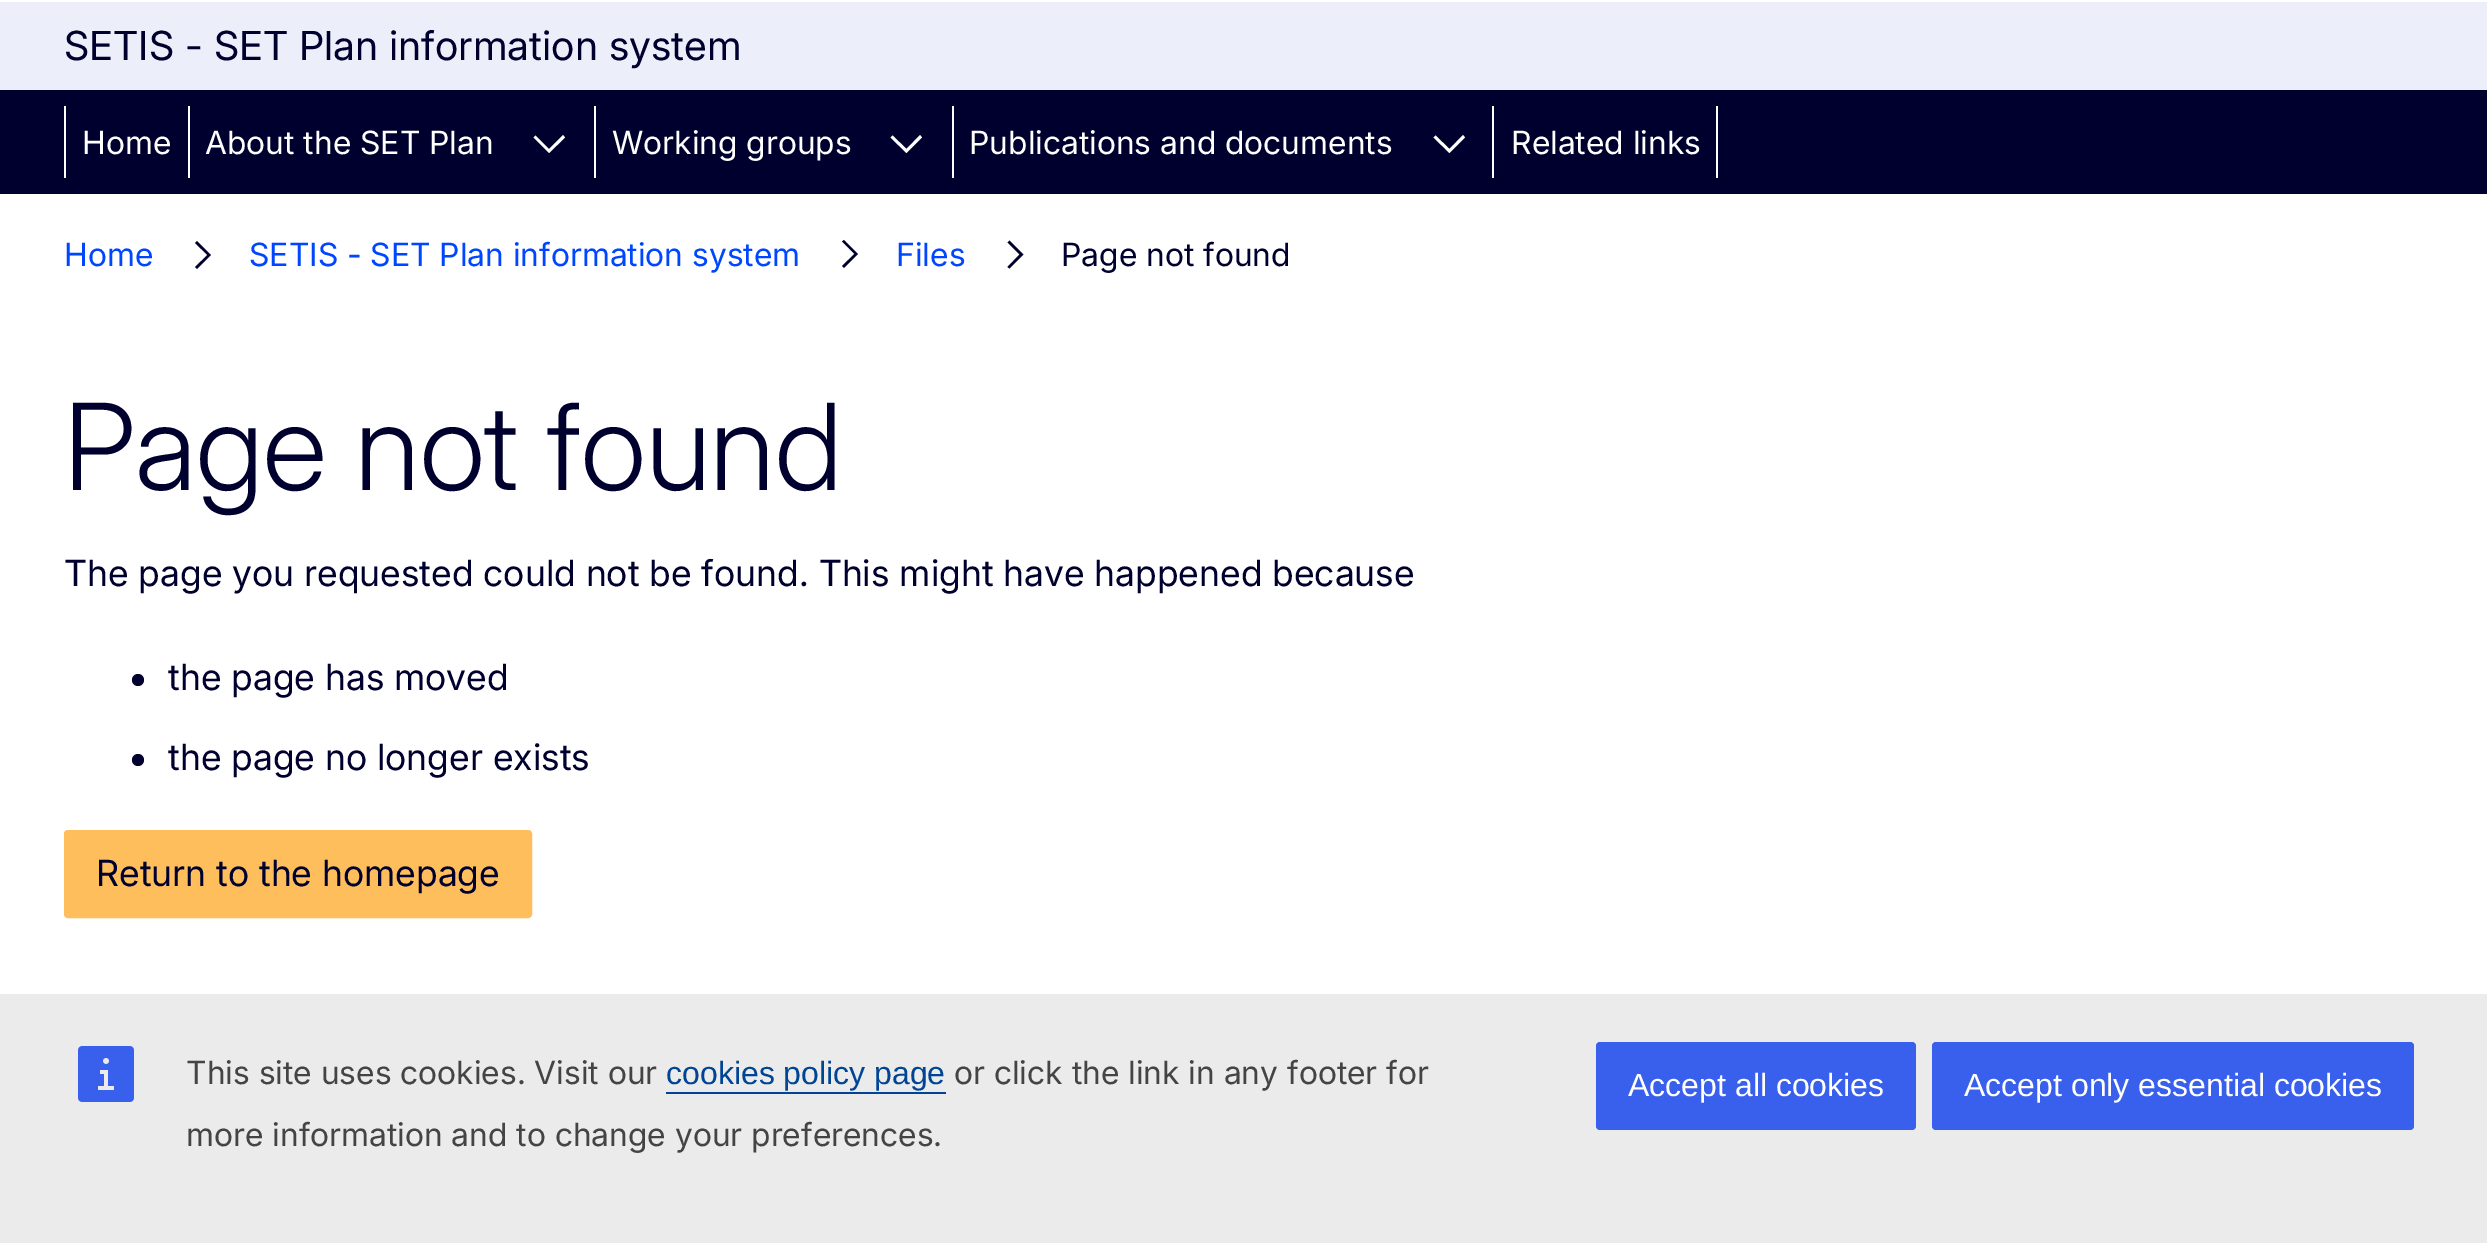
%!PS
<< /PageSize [2487 1243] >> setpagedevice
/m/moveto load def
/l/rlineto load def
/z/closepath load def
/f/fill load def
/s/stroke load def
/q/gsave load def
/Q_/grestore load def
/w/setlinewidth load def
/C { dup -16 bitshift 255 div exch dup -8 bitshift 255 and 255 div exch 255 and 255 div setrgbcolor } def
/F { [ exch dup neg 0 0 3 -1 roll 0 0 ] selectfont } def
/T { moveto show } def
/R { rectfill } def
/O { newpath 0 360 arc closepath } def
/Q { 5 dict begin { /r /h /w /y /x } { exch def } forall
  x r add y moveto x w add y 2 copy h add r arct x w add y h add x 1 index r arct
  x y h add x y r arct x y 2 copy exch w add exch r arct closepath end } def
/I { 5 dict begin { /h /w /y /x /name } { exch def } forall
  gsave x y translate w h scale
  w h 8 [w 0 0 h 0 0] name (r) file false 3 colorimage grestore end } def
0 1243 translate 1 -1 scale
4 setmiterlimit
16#FFFFFF C
0 0 2487 1243 R
16#ECEFF9 C
0 2 2487 88 R
/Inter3-Regular 40 F
16#00002E C
(SETIS - SET Plan information system) 64 60 T
0 90 2487 104 R
16#FFFFFF C
64 106 2 72 R
/Inter-Regular 32 F
(Home) 82 154 T
188 106 2 72 R
(About the SET Plan) 205 154 T
533.5 137.5 m 2 -2 l 13.5 13.5 l 14 -14 l 2 2.5 l -16 15.5 l z f
594 106 2 72 R
(Working groups) 612 154 T
890.5 137.5 m 2 -2 l 14 13.5 l 13.5 -14 l 2 2.5 l -15.5 15.5 l z f
952 106 2 72 R
(Publications and documents) 969 154 T
1433.5 137.5 m 2 -2 l 14 13.5 l 13.5 -14 l 2 2.5 l -15.5 15.5 l z f
1492 106 2 72 R
(Related links) 1511 154 T
1716 106 2 72 R
16#0046FF C
(Home) 64 266 T
16#00002E C
197 269 m -2 -2 l 12.5 -12 l -12.5 -12 l 2 -2 l 14 14 l z f
16#0046FF C
(SETIS - SET Plan information system) 249 266 T
16#00002E C
844 268 m -2 -2 l 12.5 -12 l -12.5 -12.5 l 2 -1.5 l 14 14 l z f
16#0046FF C
(Files) 896 266 T
16#00002E C
1009.5 268.5 m -2 -1.5 l 12 -12.5 l -12 -12 l 2 -2 l 14 14 l z f
(Page not found) 1061 266 T
/Inter-Light 120 F
(Page not found) 64 490 T
/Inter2-Regular 36 F
(The page you requested could not be found. This might have happened because) 64 586 T
138 680 6 O f
(the page has moved) 168 690 T
138 760 6 O f
(the page no longer exists) 168 770 T
16#FFBE5C C
66 832 464 84 2 Q q f Q_
4 w
s
16#00002E C
(Return to the homepage) 96 886 T
16#EBEBEB C
0 994 2487 249 R
(1.rgb) 78 1046 56 56 I
/Inter-Regular 32 F
16#444444 C
(This site uses cookies. Visit our) 186 1084 T
/LiberationSans-Regular 32 F
16#004494 C
(cookies policy page) 666 1084 T
666 1092 280 2 R
/Inter-Regular 32 F
16#444444 C
(or click the link in any footer for) 954 1084 T
(more information and to change your preferences.) 186 1146 T
16#3860ED C
1596 1042 320 88 4 Q f
/LiberationSans-Regular 32 F
16#FFFFFF C
(Accept all cookies) 1628 1096 T
16#3860ED C
1932 1042 482 88 4 Q f
16#FFFFFF C
(Accept only essential cookies) 1964 1096 T
showpage
